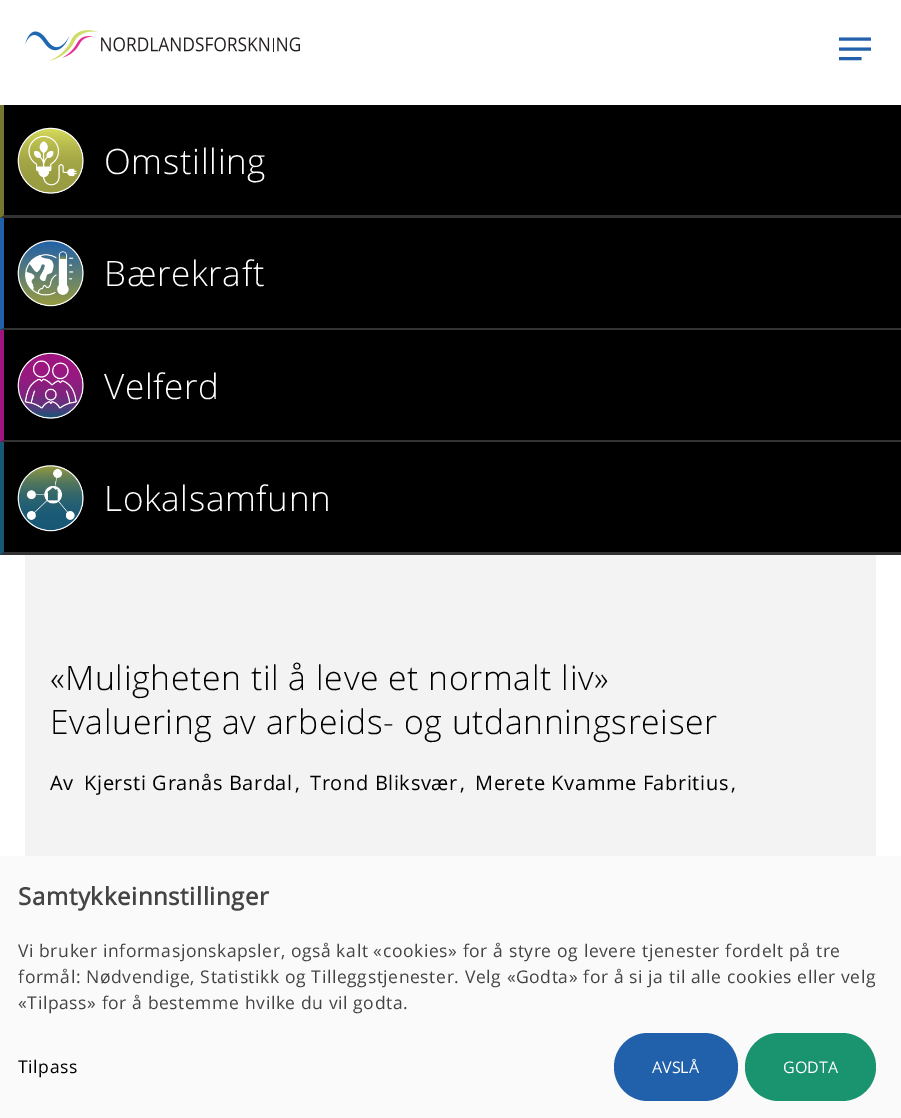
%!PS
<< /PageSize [901 1118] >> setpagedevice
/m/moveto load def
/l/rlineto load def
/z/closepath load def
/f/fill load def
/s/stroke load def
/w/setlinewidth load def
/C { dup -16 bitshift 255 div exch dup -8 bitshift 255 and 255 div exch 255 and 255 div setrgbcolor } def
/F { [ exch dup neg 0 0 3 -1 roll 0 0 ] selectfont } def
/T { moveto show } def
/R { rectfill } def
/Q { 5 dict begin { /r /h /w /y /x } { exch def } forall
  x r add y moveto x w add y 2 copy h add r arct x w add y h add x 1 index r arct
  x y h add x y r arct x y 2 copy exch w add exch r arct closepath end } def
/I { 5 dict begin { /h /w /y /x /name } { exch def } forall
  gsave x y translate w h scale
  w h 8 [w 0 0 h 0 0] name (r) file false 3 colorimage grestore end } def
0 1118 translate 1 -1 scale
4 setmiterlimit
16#FFFFFF C
0 0 901 1118 R
(1.rgb) 25 30 275 31 I
16#2160AA C
2.9 w
2 setlinecap
840.5 39 m 29 0 l 840.5 49 m 29 0 l 840.5 58.5 m 19.5 0 l s
16#000000 C
0 105 901 450 R
(2.rgb) 17 127 67 67 I
16#333333 C
901 218 m -901 0 l 4 -3 l 897 0 l z f
16#757731 C
0 218 m 0 -113 l 4 0 l 0 110 l z f
/OpenSans-Light 35 F
16#FFFFFF C
104 174 m .6 0 (Omstilling) ashow
(3.rgb) 17 240 67 67 I
16#333333 C
901 330 m -901 0 l 4 -2 l 897 0 l z f
16#2160AA C
0 330 m 0 -112 l 4 0 l 0 110 l z f
16#FFFFFF C
104 286 m .6 0 (Bærekraft) ashow
(4.rgb) 17 352 67 67 I
16#333333 C
901 442 m -901 0 l 4 -2 l 897 0 l z f
16#9F1580 C
0 442 m 0 -112 l 4 0 l 0 110 l z f
16#FFFFFF C
104 399 m .6 0 (Velferd) ashow
(5.rgb) 17 465 67 67 I
16#333333 C
901 555 m -901 0 l 4 -3 l 897 0 l z f
16#175877 C
0 555 m 0 -113 l 4 0 l 0 110 l z f
16#FFFFFF C
104 511 m .6 0 (Lokalsamfunn) ashow
16#F3F3F3 C
25 555 851 301 R
/OpenSans-Light 33.75 F
16#000000 C
50 690 m .6 0 («Muligheten til å leve et normalt liv») ashow
50 734 m .6 0 (Evaluering av arbeids- og utdanningsreiser) ashow
/OpenSans-Regular 20 F
50 790 m .6 0 (Av) ashow
84 790 m .6 0 (Kjersti Granås Bardal) ashow
295 790 m .6 0 (,) ashow
310 790 m .6 0 (Trond Bliksvær) ashow
460 790 m .6 0 (,) ashow
475 790 m .6 0 (Merete Kvamme Fabritius) ashow
731 790 m .6 0 (,) ashow
16#FAFAFA C
0 856 901 262 R
/OpenSans-Bold 24 F
16#444444 C
18 905 m .6 0 (Samtykkeinnstillinger) ashow
/OpenSans-Regular 17.5 F
18 957 m .6 0 (Vi bruker informasjonskapsler, også kalt «cookies» for å styre og levere tjenester fordelt på tre) ashow
18 983 m .6 0 (formål: Nødvendige, Statistikk og Tilleggstjenester. Velg «Godta» for å si ja til alle cookies eller velg) ashow
18 1009 m .6 0 («Tilpass» for å bestemme hvilke du vil godta.) ashow
16#000000 C
18 1073 m .6 0 (Tilpass) ashow
16#2160AA C
614 1033 124 68 34 Q f
/OpenSans-Regular 16 F
16#FFFFFF C
(AVSLÅ) 652 1073 T
16#1A936F C
745 1033 131 68 34 Q f
16#FFFFFF C
(GODTA) 783 1073 T
showpage
